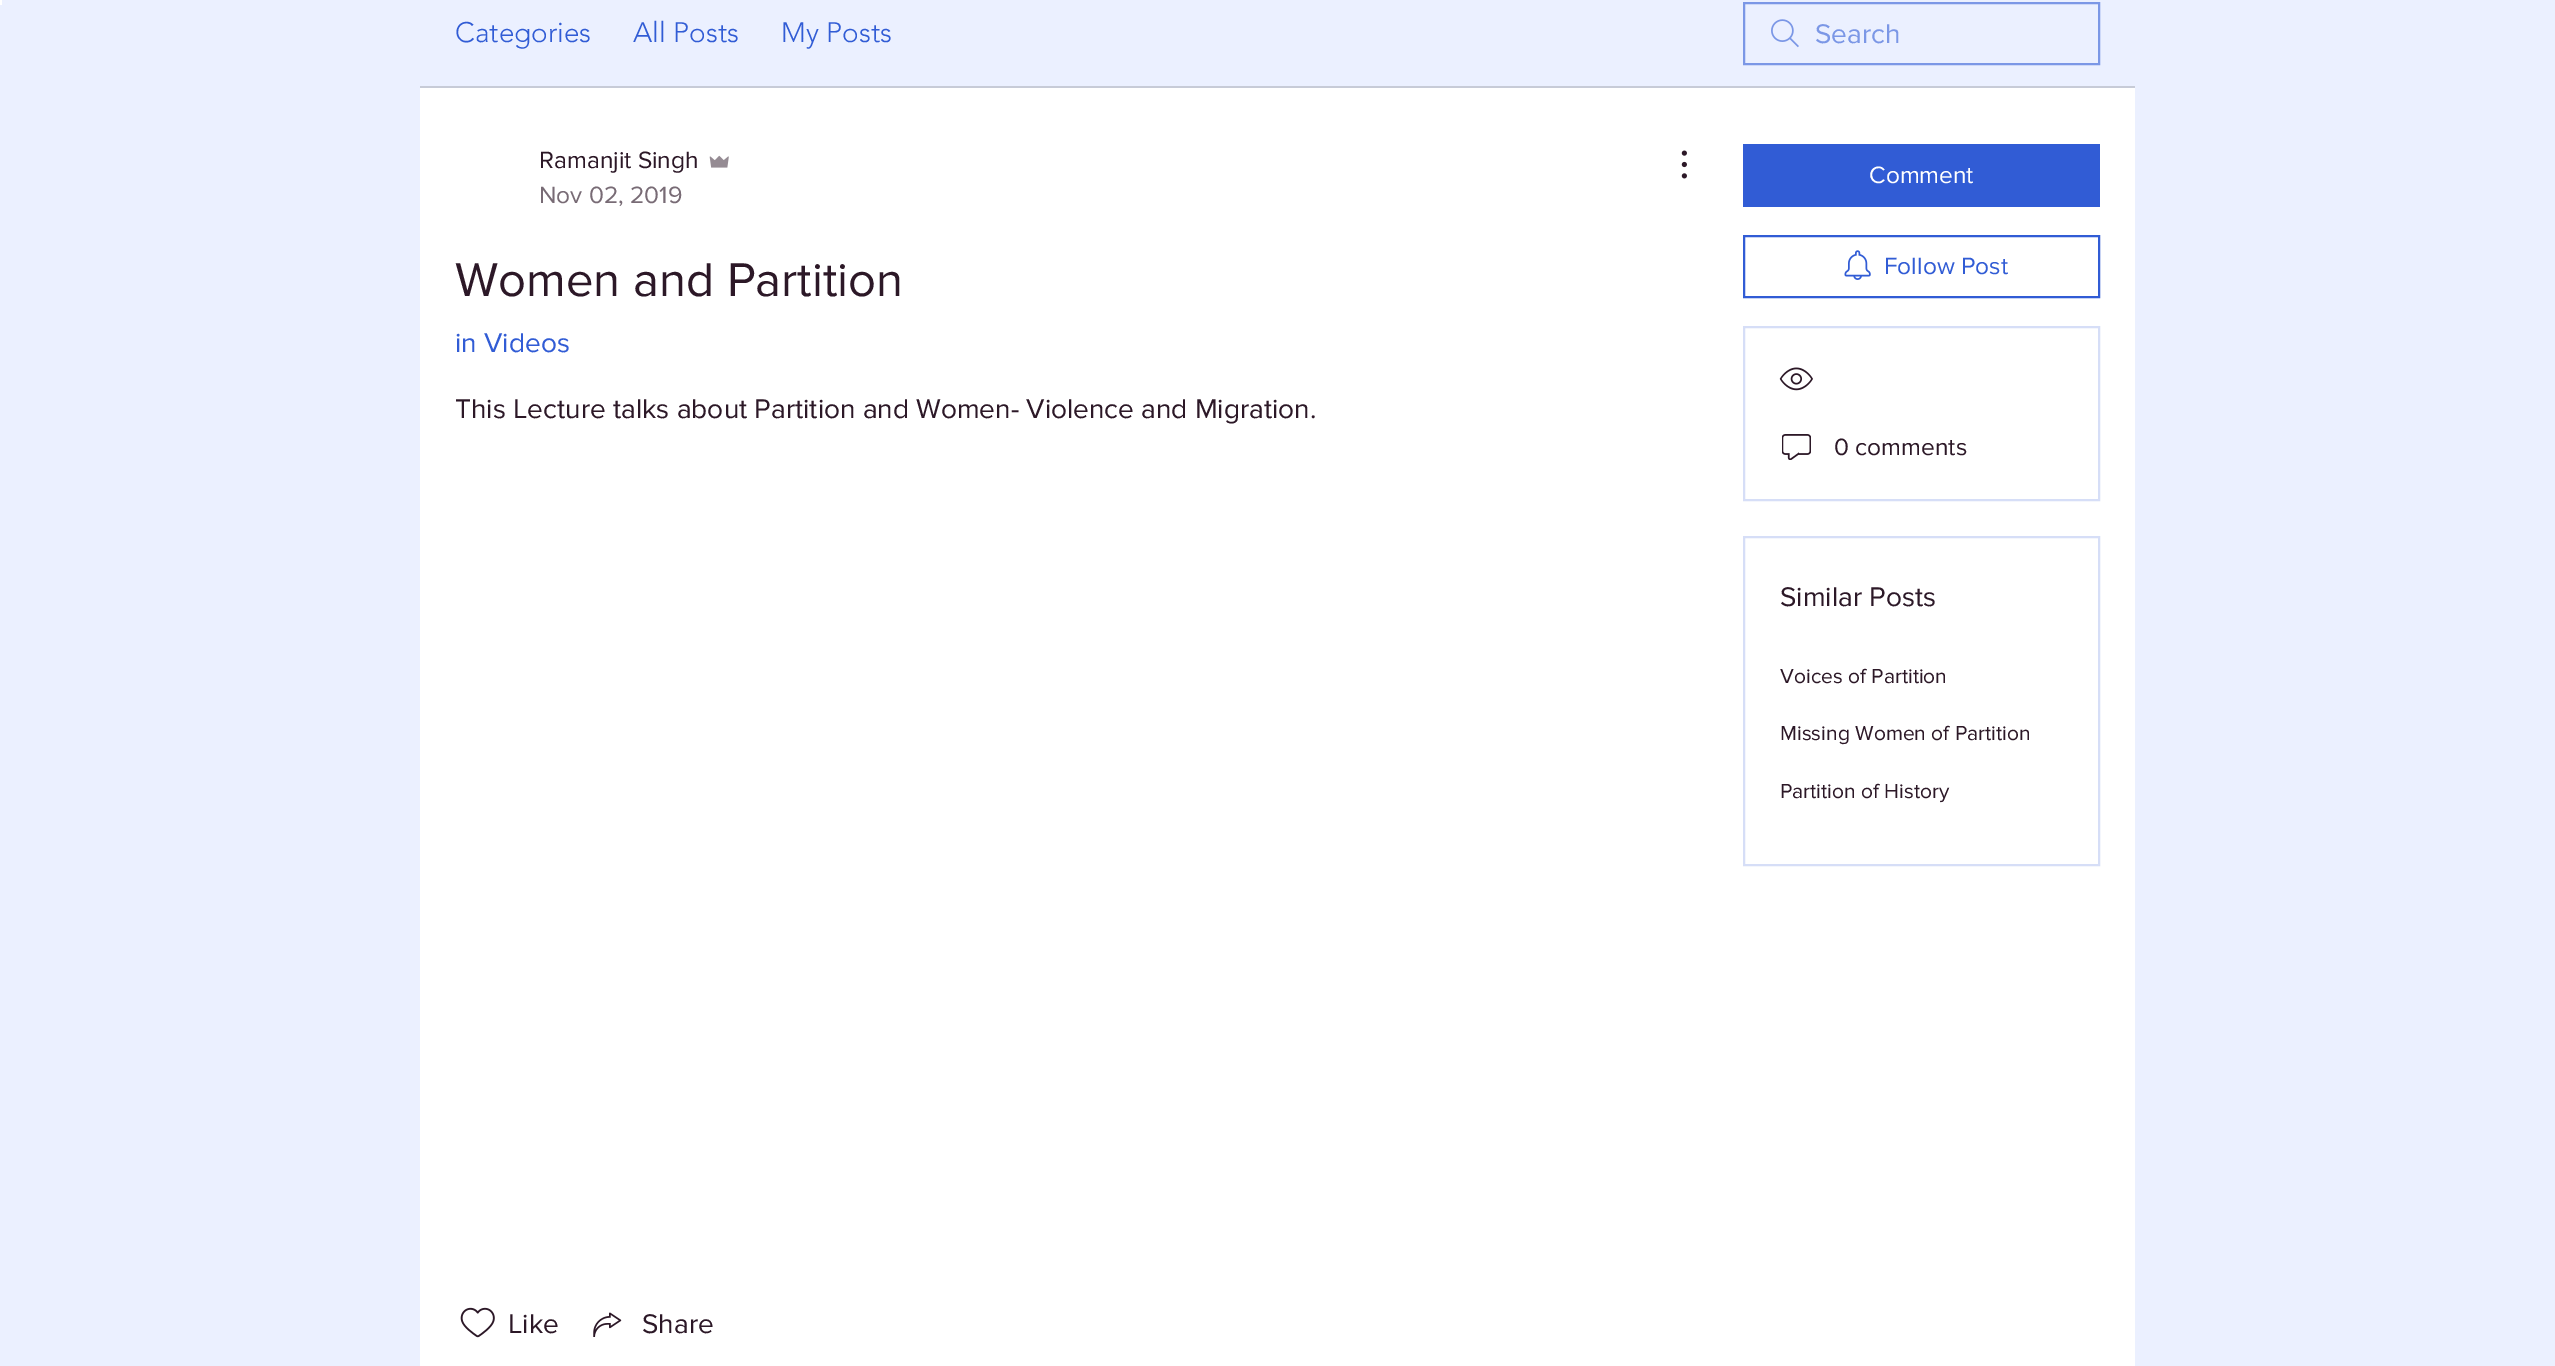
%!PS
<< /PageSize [2555 1366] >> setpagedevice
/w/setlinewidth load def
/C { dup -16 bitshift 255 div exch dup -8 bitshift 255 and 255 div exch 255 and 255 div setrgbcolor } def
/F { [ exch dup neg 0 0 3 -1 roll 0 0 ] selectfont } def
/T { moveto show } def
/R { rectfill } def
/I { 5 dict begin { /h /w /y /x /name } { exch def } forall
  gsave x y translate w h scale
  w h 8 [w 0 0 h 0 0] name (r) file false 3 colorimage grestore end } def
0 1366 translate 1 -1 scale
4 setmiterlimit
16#EBF0FF C
0 0 2555 1366 R
16#FFFFFF C
0 0 2 5 R
16#C7CBD7 C
420 86 1715 2 R
/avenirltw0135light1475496-Light 28 F
16#315CD5 C
(Categories) 455 42 T
(All Posts) 633 42 T
(My Posts) 781 42 T
(1.rgb) 1771 19 28 29 I
16#7B97E6 C
2 w
1744 3 355 61 rectstroke
/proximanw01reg-Regular 28 F
(Search) 1815 43 T
16#FFFFFF C
420 88 1715 1278 R
/proximanw01reg-Regular 24.5 F
16#2C1827 C
(Ramanjit Singh) 539 168 T
(2.rgb) 709 155 20 13 I
16#786B75 C
(Nov 02, 2019) 539 203 T
(3.rgb) 1681 150 6 29 I
/proximanw01reg-Regular 49 F
16#2C1827 C
(Women and Partition) 455 296 T
/proximanw01reg-Regular 28 F
16#315CD5 C
(in Videos) 455 352 T
16#2C1827 C
(This Lecture talks about Partition and Women- Violence and Migration.) 455 418 T
(4.rgb) 460 1307 35 31 I
(Like) 508 1333 T
(5.rgb) 593 1312 29 25 I
(Share) 642 1333 T
16#315CD5 C
1743 144 357 63 R
/proximanw01reg-Regular 24.5 F
16#FFFFFF C
(Comment) 1869 183 T
16#315CD5 C
1744 236 355 61 rectstroke
(6.rgb) 1844 250 27 30 I
(Follow Post) 1884 274 T
16#D6DEF7 C
1744 327 355 173 rectstroke
(7.rgb) 1779 367 34 24 I
(8.rgb) 1782 434 29 26 I
16#2C1827 C
(0 comments) 1834 455 T
16#D6DEF7 C
1744 537 355 328 rectstroke
/proximanw01reg-Regular 28 F
16#2C1827 C
(Similar Posts) 1780 606 T
/proximanw01reg-Regular 21 F
(Voices of Partition) 1780 683 T
(Missing Women of Partition) 1780 740 T
(Partition of History) 1780 798 T
showpage
